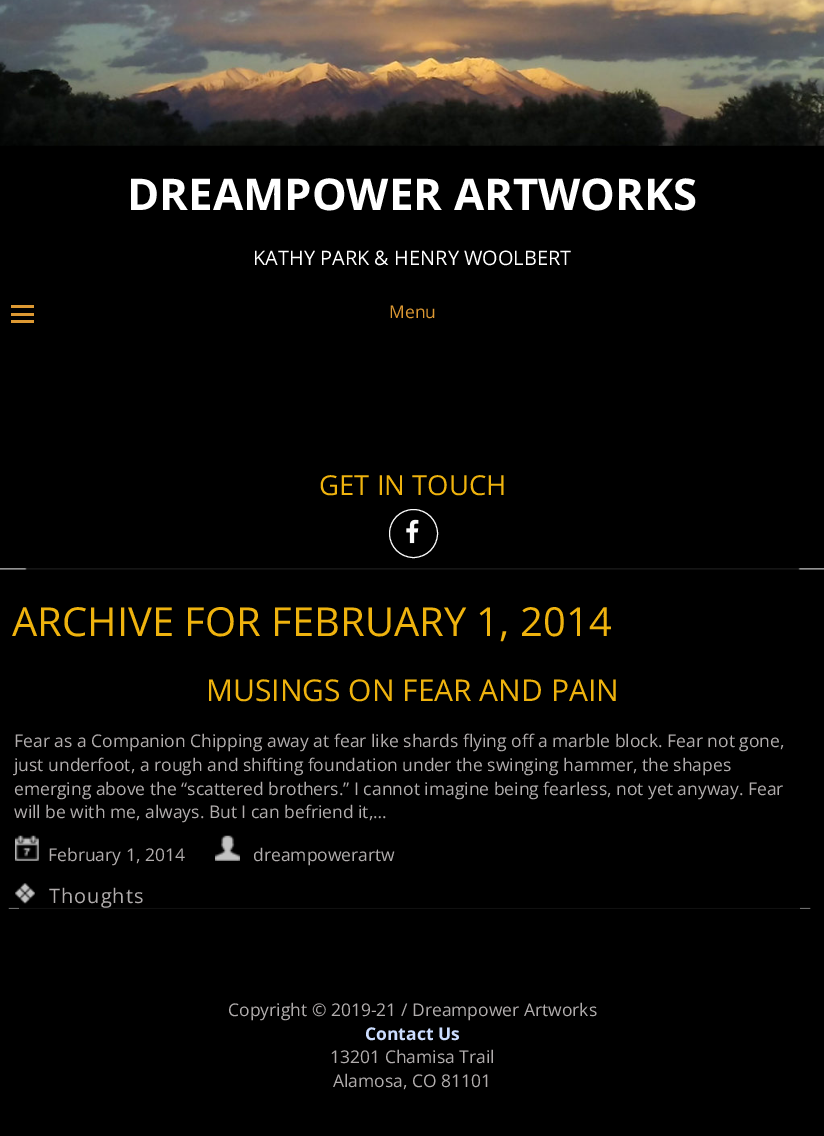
%!PS
<< /PageSize [824 1136] >> setpagedevice
/m/moveto load def
/s/stroke load def
/C { dup -16 bitshift 255 div exch dup -8 bitshift 255 and 255 div exch 255 and 255 div setrgbcolor } def
/F { [ exch dup neg 0 0 3 -1 roll 0 0 ] selectfont } def
/T { moveto show } def
/R { rectfill } def
/O { newpath 0 360 arc closepath } def
/I { 5 dict begin { /h /w /y /x /name } { exch def } forall
  gsave x y translate w h scale
  w h 8 [w 0 0 h 0 0] name (r) file false 3 colorimage grestore end } def
0 1136 translate 1 -1 scale
4 setmiterlimit
16#000000 C
0 0 824 1136 R
(1.rgb) 0 0 824 146 I
/OpenSans-Bold 43.75 F
16#FFFFFF C
(DREAMPOWER ARTWORKS) 127 210 T
/OpenSans-Regular 20 F
(KATHY PARK & HENRY WOOLBERT) 253 265 T
16#DD9933 C
11 320 23 3 R
11 313 23 3 R
11 305 23 3 R
/OpenSans-Regular 17.5 F
(Menu) 389 318 T
/OpenSans-Regular 27.5 F
16#EFB30E C
(GET IN TOUCH) 319 495 T
16#FBFBFB C
413.5 533.5 24 O s
(2.rgb) 406 519 13 25 I
(3.rgb) 0 568 824 2 I
/OpenSans-Regular 40 F
16#EFB30E C
(ARCHIVE FOR FEBRUARY 1, 2014) 12 636 T
(4.rgb) 8 907 803 2 I
/OpenSans-Regular 30 F
(MUSINGS ON FEAR AND PAIN) 206 701 T
/OpenSans-Regular 17.5 F
16#B1ADAD C
(Fear as a Companion Chipping away at fear like shards flying off a marble block. Fear not gone,) 14 747 T
(just underfoot, a rough and shifting foundation under the swinging hammer, the shapes) 14 771 T
(emerging above the “scattered brothers.” I cannot imagine being fearless, not yet anyway. Fear) 14 795 T
(will be with me, always. But I can befriend it,…) 14 818 T
(5.rgb) 15 835 24 26 I
(February 1, 2014) 48 861 T
(6.rgb) 215 835 25 26 I
(dreampowerartw) 253 861 T
(7.rgb) 15 883 20 21 I
/OpenSans-Regular 20 F
49 903 m 1 0 (Thoughts) ashow
/OpenSans-Regular 17.5 F
(Copyright © 2019-21 / Dreampower Artworks) 228 1016 T
/OpenSans-Bold 17.5 F
16#CCDDFF C
(Contact Us) 365 1040 T
/OpenSans-Regular 17.5 F
16#B1ADAD C
(13201 Chamisa Trail) 330 1063 T
(Alamosa, CO 81101) 333 1087 T
showpage
